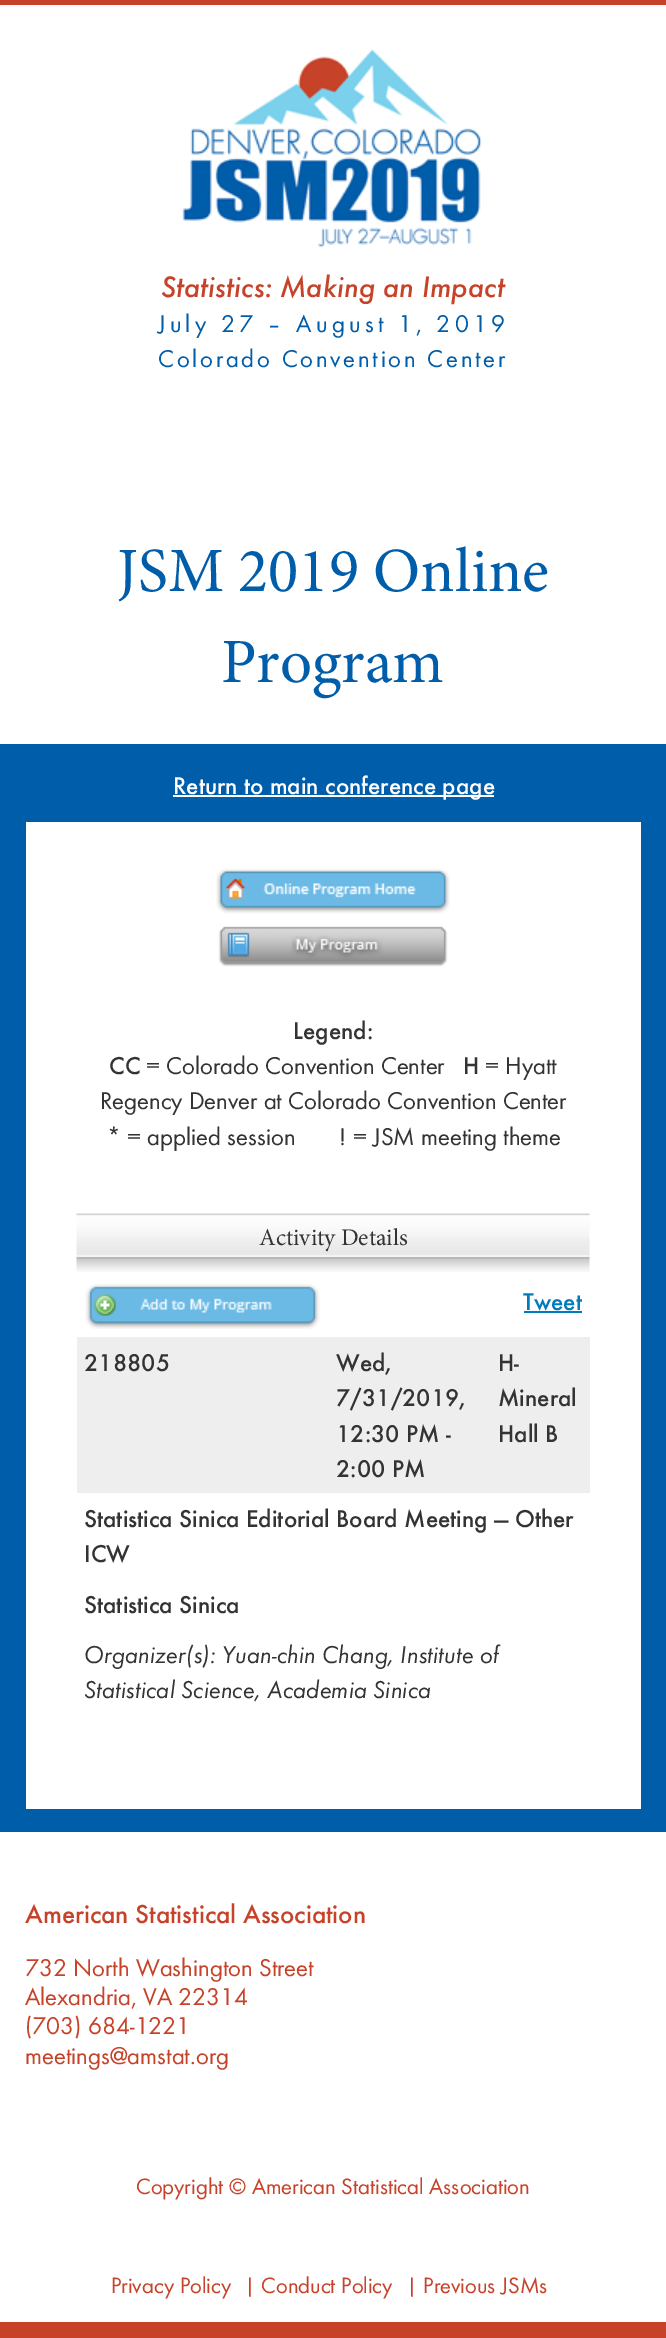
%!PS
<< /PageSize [666 2338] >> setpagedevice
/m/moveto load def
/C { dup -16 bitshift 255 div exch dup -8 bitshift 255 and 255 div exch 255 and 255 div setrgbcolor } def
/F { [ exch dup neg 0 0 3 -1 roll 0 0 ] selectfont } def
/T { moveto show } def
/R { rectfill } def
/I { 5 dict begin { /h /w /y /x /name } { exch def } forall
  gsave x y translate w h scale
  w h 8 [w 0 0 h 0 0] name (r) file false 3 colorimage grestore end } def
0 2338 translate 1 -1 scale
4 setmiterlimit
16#C64229 C
0 0 666 2338 R
16#005DAA C
0 744 666 1088 R
16#FFFFFF C
0 5 666 739 R
(1.rgb) 182 49 300 199 I
/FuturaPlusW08-Italic 30.7 F
16#C64229 C
(Statistics: Making an Impact) 161 297 T
/FuturaPlusW08-Regular 25.25 F
16#005DAA C
158 332 m 4.2 0 (July 27 – August 1, 2019) ashow
158 367 m 2.75 0 (Colorado Convention Center) ashow
/Minion-Regular 63 F
(JSM 2019 Online) 117 591 T
(Program) 221 682 T
16#FFFFFF C
173 795 321 2 R
/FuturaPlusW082-Regular 25.25 F
(Return to main conference page) 173 794 T
26 822 615 987 R
(2.rgb) 216 869 234 45 I
(3.rgb) 218 926 230 41 I
16#333333 C
(Legend:) 293 1039 T
(CC) 109 1074 T
/FuturaPlusW08-Regular 25.25 F
(= Colorado Convention Center) 146 1074 T
/FuturaPlusW082-Regular 25.25 F
(H) 463 1074 T
/FuturaPlusW08-Regular 25.25 F
(= Hyatt) 485 1074 T
(Regency Denver at Colorado Convention Center) 100 1109 T
(* = applied session       ! = JSM meeting theme) 107 1145 T
(4.rgb) 76 1213 514 59 I
/Minion-Regular 24 F
(Activity Details) 259 1245 T
(5.rgb) 85 1284 235 45 I
/FuturaPlusW082-Regular 25.25 F
16#007CBE C
(Tweet) 523 1310 T
524 1311 58 2 R
16#EEEEEE C
77 1337 513 156 R
16#333333 C
(218805) 84 1371 T
(Wed,) 336 1371 T
(7/31/2019,) 336 1406 T
(12:30 PM -) 336 1442 T
(2:00 PM) 336 1477 T
(H-) 498 1371 T
(Mineral) 498 1406 T
(Hall B) 498 1442 T
(Statistica Sinica Editorial Board Meeting — Other) 84 1527 T
(ICW) 84 1562 T
(Statistica Sinica) 84 1613 T
/FuturaPlusW082-Italic 25.25 F
(Organizer\(s\): Yuan-chin Chang, Institute of) 84 1663 T
(Statistical Science, Academia Sinica) 84 1698 T
16#FFFFFF C
0 1832 666 490 R
/FuturaPlusW082-Regular 27 F
16#C64229 C
(American Statistical Association) 25 1923 T
/FuturaPlusW08-Regular 25.25 F
(732 North Washington Street) 25 1976 T
(Alexandria, VA 22314) 25 2005 T
(\(703\) 684-1221) 25 2034 T
(meetings@amstat.org) 25 2064 T
/FuturaPlusW08-Regular 23.1 F
(Copyright © American Statistical Association) 136 2194 T
(Privacy Policy) 111 2293 T
(| Conduct Policy) 244 2293 T
(| Previous JSMs) 406 2293 T
showpage
